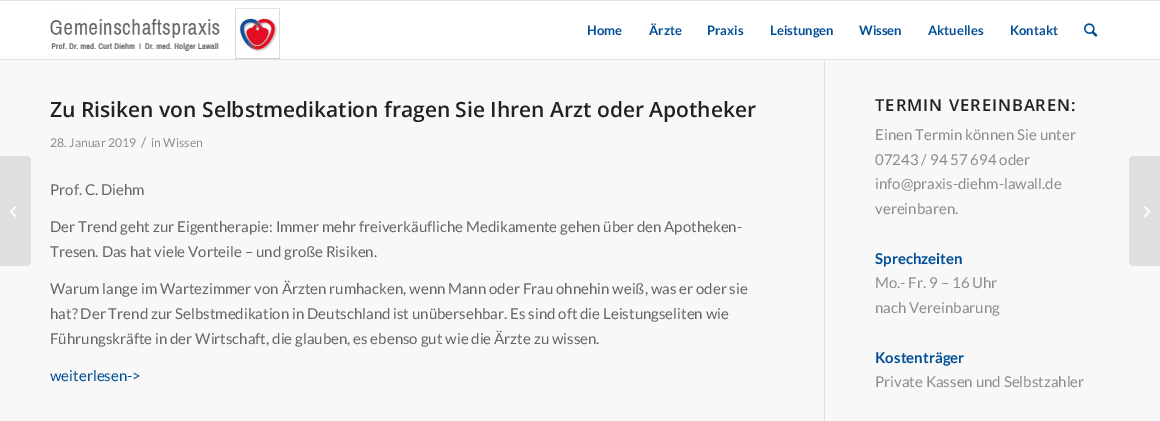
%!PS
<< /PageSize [1160 421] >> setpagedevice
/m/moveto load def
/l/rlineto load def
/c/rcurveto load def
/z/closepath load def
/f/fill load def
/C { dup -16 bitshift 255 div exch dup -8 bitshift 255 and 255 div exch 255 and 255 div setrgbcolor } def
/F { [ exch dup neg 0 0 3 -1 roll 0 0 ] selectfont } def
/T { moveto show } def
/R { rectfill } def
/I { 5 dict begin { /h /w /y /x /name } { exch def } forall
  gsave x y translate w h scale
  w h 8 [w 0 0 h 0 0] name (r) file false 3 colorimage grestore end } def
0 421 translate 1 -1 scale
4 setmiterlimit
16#FFFFFF C
0 0 1160 421 R
16#E1E1E1 C
0 0 1160 1 R
0 59 1160 1 R
(1.rgb) 50 8 230 51 I
/Lato-Bold 13 F
16#004E97 C
(Home) 587 35 T
(Ärzte) 649 35 T
(Praxis) 707 35 T
(Leistungen) 770 35 T
(Wissen) 859 35 T
(Aktuelles) 928 35 T
(Kontakt) 1010 35 T
(2.rgb) 1084 23 14 14 I
16#F8F8F8 C
0 60 1160 361 R
16#DFDFDF C
0 156 m 27 0 l 2 0 4 2 4 4 c 0 102 l 0 2 -2 4 -4 4 c -27 0 l z f
(3.rgb) 10 206 7 11 I
16#E1E1E1 C
824 60 1 361 R
/OpenSans-SemiBold 21 F
16#222222 C
(Zu Risiken von Selbstmedikation fragen Sie Ihren Arzt oder Apotheker) 50 117 T
/Lato-Regular 12.25 F
16#8D8D8D C
(28. Januar 2019) 50 147 T
/Lato-Regular 14 F
(/) 141 147 T
/Lato-Regular 12.25 F
(in Wissen) 151 147 T
/Lato-Regular 15 F
16#666666 C
(Prof. C. Diehm) 50 195 T
(Der Trend geht zur Eigentherapie: Immer mehr freiverkäufliche Medikamente gehen über den Apotheken-) 50 232 T
(Tresen. Das hat viele Vorteile – und große Risiken.) 50 257 T
(Warum lange im Wartezimmer von Ärzten rumhacken, wenn Mann oder Frau ohnehin weiß, was er oder sie) 50 294 T
(hat? Der Trend zur Selbstmedikation in Deutschland ist unübersehbar. Es sind oft die Leistungseliten wie) 50 319 T
(Führungskräfte in der Wirtschaft, die glauben, es ebenso gut wie die Ärzte zu wissen.) 50 344 T
16#004E97 C
(weiterlesen->) 50 381 T
/OpenSans-SemiBold 16.5 F
16#222222 C
875 111 m 1 0 (TERMIN VEREINBAREN:) ashow
/Lato-Regular 15 F
16#8D8D8D C
(Einen Termin können Sie unter) 875 140 T
(07243 / 94 57 694 oder) 875 165 T
(info@praxis-diehm-lawall.de) 875 189 T
(vereinbaren.) 875 214 T
/Lato-Bold 15 F
16#004E97 C
(Sprechzeiten) 875 264 T
/Lato-Regular 15 F
16#8D8D8D C
(Mo.- Fr. 9 – 16 Uhr) 875 288 T
(nach Vereinbarung) 875 313 T
/Lato-Bold 15 F
16#004E97 C
(Kostenträger) 875 363 T
/Lato-Regular 15 F
16#8D8D8D C
(Private Kassen und Selbstzahler) 875 387 T
16#DFDFDF C
1133 156 m 27 0 l 0 110 l -27 0 l -2 0 -4 -2 -4 -4 c 0 -102 l 0 -2 2 -4 4 -4 c z f
(4.rgb) 1144 206 7 11 I
showpage
